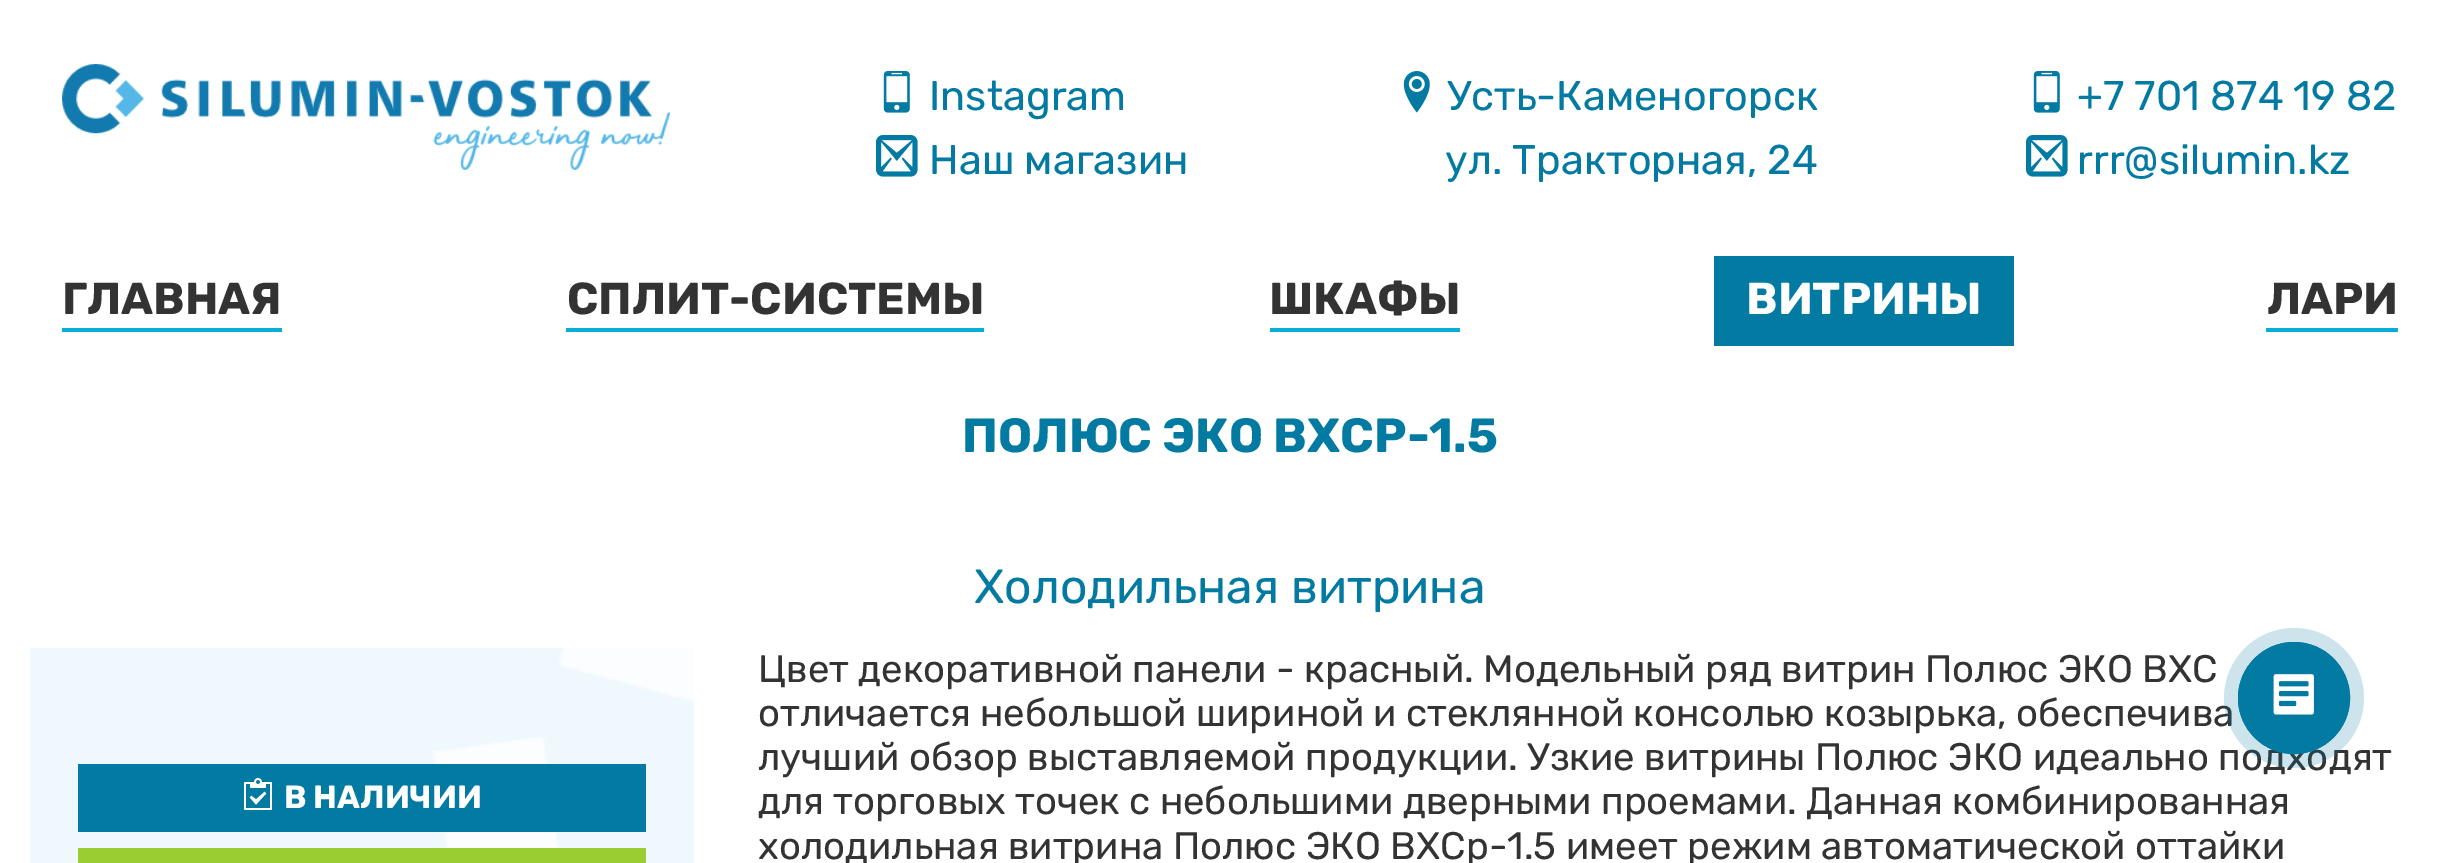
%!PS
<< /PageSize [2459 863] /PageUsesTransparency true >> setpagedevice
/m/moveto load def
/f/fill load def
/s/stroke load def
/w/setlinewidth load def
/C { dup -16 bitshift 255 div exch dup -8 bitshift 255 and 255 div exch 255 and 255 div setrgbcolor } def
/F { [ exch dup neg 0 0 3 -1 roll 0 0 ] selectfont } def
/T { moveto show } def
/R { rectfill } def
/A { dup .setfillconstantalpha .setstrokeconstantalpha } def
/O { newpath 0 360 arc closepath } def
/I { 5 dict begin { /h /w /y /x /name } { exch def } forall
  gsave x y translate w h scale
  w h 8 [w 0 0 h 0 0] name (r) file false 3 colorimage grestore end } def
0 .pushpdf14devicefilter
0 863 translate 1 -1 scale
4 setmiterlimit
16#FFFFFF C
0 0 2459 863 R
(1.rgb) 62 64 608 106 I
(2.rgb) 883 71 27 42 I
/Rubik-Regular 41.5 F
16#037AA2 C
(Instagram) 929 110 T
(3.rgb) 876 135 42 42 I
(Наш магазин) 929 174 T
(4.rgb) 1403 71 27 42 I
(Усть-Каменогорск) 1447 110 T
(ул. Тракторная, 24) 1445 174 T
(2.rgb) 2033 71 27 42 I
(+7 701 874 19 82) 2077 110 T
(3.rgb) 2026 135 42 42 I
(rrr@silumin.kz) 2077 174 T
/Rubik-Bold 44.75 F
16#333333 C
(ГЛАВНАЯ) 62 314 T
16#06AED5 C
62 328 220 4 R
16#333333 C
(СПЛИТ-СИСТЕМЫ) 567 314 T
16#06AED5 C
566 328 418 4 R
16#333333 C
(ШКАФЫ) 1269 314 T
16#06AED5 C
1270 328 190 4 R
16#037AA2 C
1714 256 300 90 R
16#FFFFFF C
(ВИТРИНЫ) 1746 314 T
16#333333 C
(ЛАРИ) 2267 314 T
16#06AED5 C
2266 328 132 4 R
/Rubik-Bold 48 F
16#037AA2 C
(ПОЛЮС ЭКО ВХСР-1.5) 962 452 T
/Rubik-Regular 48 F
(Холодильная витрина) 974 603 T
(5.rgb) 30 648 664 215 I
78 764 568 68 R
(6.rgb) 244 778 28 32 I
/Rubik-Bold 32 F
16#FFFFFF C
(В НАЛИЧИИ) 284 808 T
16#9ACD32 C
78 848 568 15 R
/Rubik-Regular 38.4 F
16#333333 C
(Цвет декоративной панели - красный. Модельный ряд витрин Полюс ЭКО ВХС) 758 682 T
758 726 m -.25 0 32 (отличается небольшой шириной и стеклянной консолью козырька, обеспечива) widthshow
(лучший обзор выставляемой продукции. Узкие витрины Полюс ЭКО идеально подходят) 758 770 T
758 814 m -.25 0 32 (для торговых точек с небольшими дверными проемами. Данная комбинированная) widthshow
(холодильная витрина Полюс ЭКО ВХСр-1.5 имеет режим автоматической оттайки) 758 859 T
0.2 A
16#037AA2 C
2294 698 70 O f
1 A
2 w
2294 698 55 O s
2294 698 56 O f
(7.rgb) 2273 674 41 41 I
.poppdf14devicefilter showpage
